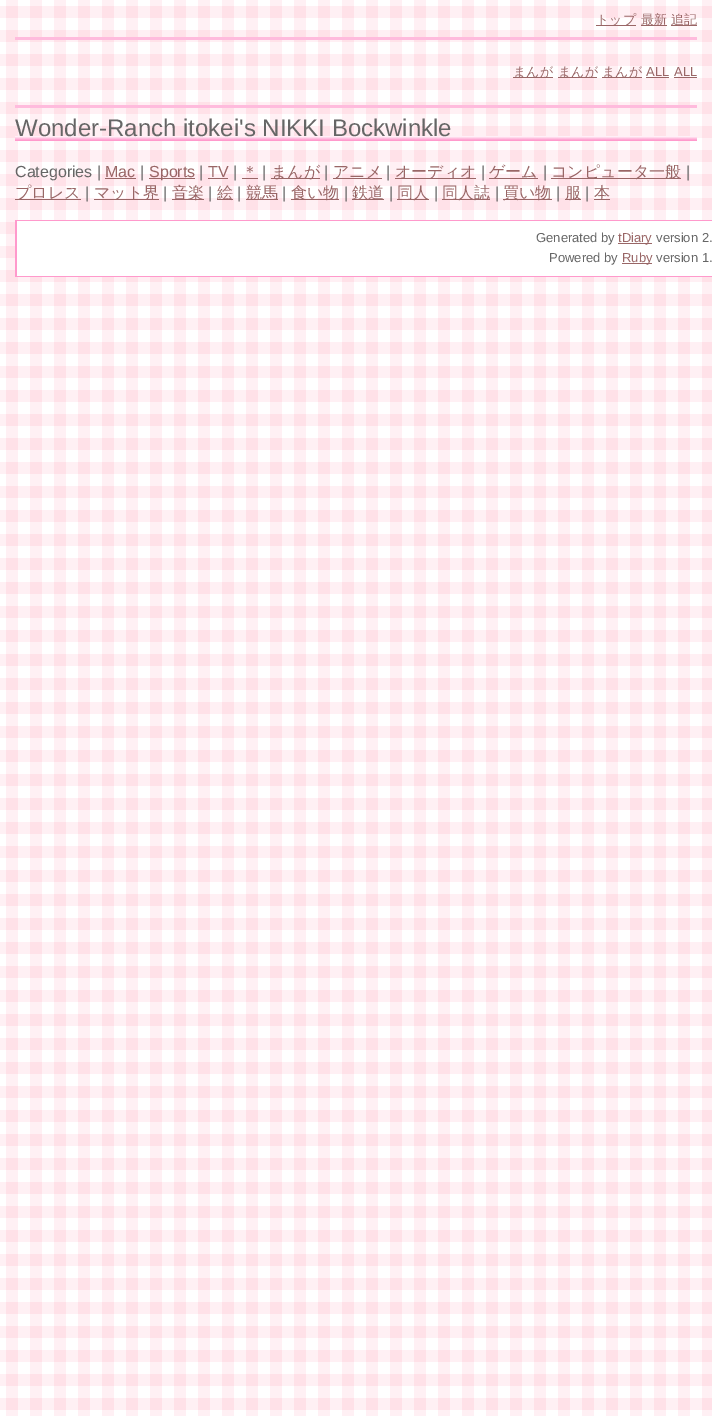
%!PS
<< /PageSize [712 1416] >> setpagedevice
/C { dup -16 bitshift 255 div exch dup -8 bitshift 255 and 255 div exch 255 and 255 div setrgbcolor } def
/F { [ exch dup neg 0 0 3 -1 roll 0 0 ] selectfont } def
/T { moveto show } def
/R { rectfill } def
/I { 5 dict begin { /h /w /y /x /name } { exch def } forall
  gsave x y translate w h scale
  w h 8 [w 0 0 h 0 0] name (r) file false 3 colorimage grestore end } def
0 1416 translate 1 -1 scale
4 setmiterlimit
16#FFFFFF C
0 0 712 1416 R
(1.rgb) 0 0 712 1416 I
16#FFBBDD C
15 37 682 3 R
16#996666 C
596 25 40 1 R
/WenQuanYiZenHei-Medium 13 F
(トップ) 596 24 T
641 25 26 1 R
(最新) 641 24 T
671 25 26 1 R
(追記) 671 24 T
16#FFBBDD C
15 105 682 3 R
16#996666 C
513 77 40 1 R
(まんが) 513 76 T
558 77 39 1 R
(まんが) 558 76 T
602 77 40 1 R
(まんが) 602 76 T
/LiberationSans-Regular 13 F
(ALL) 646 76 T
646 77 23 1 R
(ALL) 674 76 T
674 77 23 1 R
(2.rgb) 15 136 682 5 I
/LiberationSans-Regular 24 F
16#666666 C
(Wonder-Ranch itokei's NIKKI Bockwinkle) 15 136 T
/LiberationSans-Regular 16 F
(Categories |) 15 177 T
16#996666 C
(Mac) 105 177 T
105 178 31 1 R
16#666666 C
(|) 140 177 T
16#996666 C
149 178 46 1 R
(Sports) 149 177 T
16#666666 C
(|) 199 177 T
16#996666 C
(TV) 208 177 T
208 178 20 1 R
16#666666 C
(|) 233 177 T
/WenQuanYiZenHei-Medium 16 F
16#996666 C
(＊) 242 177 T
242 178 16 1 R
/LiberationSans-Regular 16 F
16#666666 C
(|) 262 177 T
16#996666 C
271 178 49 1 R
/WenQuanYiZenHei-Medium 16 F
(まんが) 271 177 T
/LiberationSans-Regular 16 F
16#666666 C
(|) 324 177 T
16#996666 C
333 178 49 1 R
/WenQuanYiZenHei-Medium 16 F
(アニメ) 333 177 T
/LiberationSans-Regular 16 F
16#666666 C
(|) 386 177 T
16#996666 C
395 178 81 1 R
/WenQuanYiZenHei-Medium 16 F
(オーディオ) 395 177 T
/LiberationSans-Regular 16 F
16#666666 C
(|) 481 177 T
16#996666 C
489 178 49 1 R
/WenQuanYiZenHei-Medium 16 F
(ゲーム) 489 177 T
/LiberationSans-Regular 16 F
16#666666 C
(|) 543 177 T
16#996666 C
551 178 130 1 R
/WenQuanYiZenHei-Medium 16 F
(コンピュータ一般) 551 177 T
/LiberationSans-Regular 16 F
16#666666 C
(|) 686 177 T
16#996666 C
15 199 66 1 R
/WenQuanYiZenHei-Medium 16 F
(プロレス) 15 198 T
/LiberationSans-Regular 16 F
16#666666 C
(|) 85 198 T
16#996666 C
94 199 65 1 R
/WenQuanYiZenHei-Medium 16 F
(マット界) 94 198 T
/LiberationSans-Regular 16 F
16#666666 C
(|) 163 198 T
16#996666 C
172 199 32 1 R
/WenQuanYiZenHei-Medium 16 F
(音楽) 172 198 T
/LiberationSans-Regular 16 F
16#666666 C
(|) 208 198 T
16#996666 C
217 199 16 1 R
/WenQuanYiZenHei-Medium 16 F
(絵) 217 198 T
/LiberationSans-Regular 16 F
16#666666 C
(|) 237 198 T
16#996666 C
246 199 32 1 R
/WenQuanYiZenHei-Medium 16 F
(競馬) 246 198 T
/LiberationSans-Regular 16 F
16#666666 C
(|) 282 198 T
16#996666 C
291 199 48 1 R
/WenQuanYiZenHei-Medium 16 F
(食い物) 291 198 T
/LiberationSans-Regular 16 F
16#666666 C
(|) 344 198 T
16#996666 C
352 199 32 1 R
/WenQuanYiZenHei-Medium 16 F
(鉄道) 352 198 T
/LiberationSans-Regular 16 F
16#666666 C
(|) 389 198 T
16#996666 C
397 199 32 1 R
/WenQuanYiZenHei-Medium 16 F
(同人) 397 198 T
/LiberationSans-Regular 16 F
16#666666 C
(|) 434 198 T
16#996666 C
442 199 48 1 R
/WenQuanYiZenHei-Medium 16 F
(同人誌) 442 198 T
/LiberationSans-Regular 16 F
16#666666 C
(|) 495 198 T
16#996666 C
503 199 49 1 R
/WenQuanYiZenHei-Medium 16 F
(買い物) 503 198 T
/LiberationSans-Regular 16 F
16#666666 C
(|) 556 198 T
16#996666 C
565 199 16 1 R
/WenQuanYiZenHei-Medium 16 F
(服) 565 198 T
/LiberationSans-Regular 16 F
16#666666 C
(|) 585 198 T
16#996666 C
594 199 16 1 R
/WenQuanYiZenHei-Medium 16 F
(本) 594 198 T
16#FFFFFF C
17 221 695 55 R
16#FF99CC C
15 220 697 1 R
15 276 697 1 R
15 220 2 57 R
/LiberationSans-Regular 13 F
16#666666 C
(Generated by) 536 242 T
16#996666 C
618 243 34 1 R
(tDiary) 618 242 T
16#666666 C
(version 2.) 656 242 T
(Powered by) 549 262 T
16#996666 C
622 263 30 1 R
(Ruby) 622 262 T
16#666666 C
(version 1.) 656 262 T
showpage
